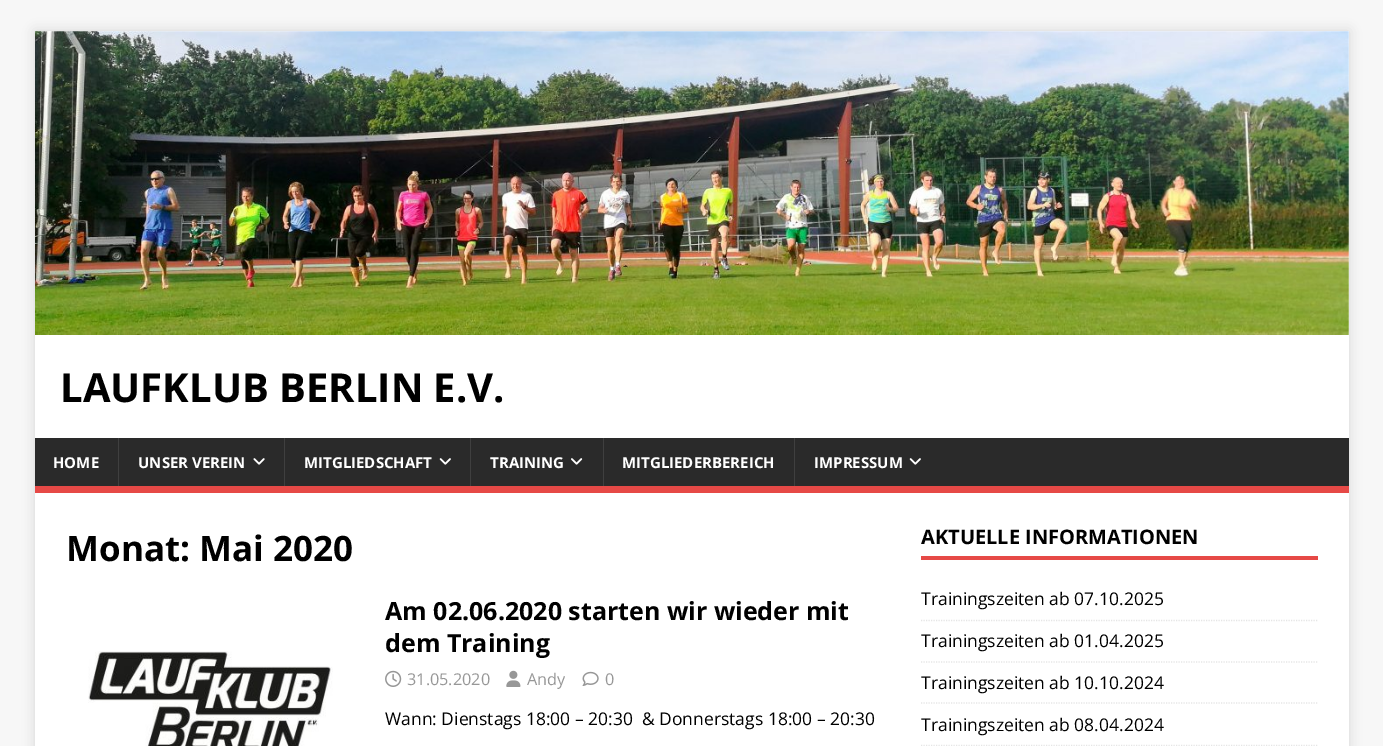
%!PS
<< /PageSize [1383 746] /PageUsesTransparency true >> setpagedevice
/m/moveto load def
/l/rlineto load def
/s/stroke load def
/w/setlinewidth load def
/C { dup -16 bitshift 255 div exch dup -8 bitshift 255 and 255 div exch 255 and 255 div setrgbcolor } def
/F { [ exch dup neg 0 0 3 -1 roll 0 0 ] selectfont } def
/T { moveto show } def
/R { rectfill } def
/A { dup .setfillconstantalpha .setstrokeconstantalpha } def
/Q { 5 dict begin { /r /h /w /y /x } { exch def } forall
  x r add y moveto x w add y 2 copy h add r arct x w add y h add x 1 index r arct
  x y h add x y r arct x y 2 copy exch w add exch r arct closepath end } def
/S { 12 dict begin { /a /b /q /h /w /y /x } { exch def } forall gsave /was 0 def
  9 -2 -9 { dup b mul 4 div /e exch def 1 sub .425 mul 2.718 exch exp 1 add a .99 .min exch div /now exch def
    1 1 now sub 1 was sub div sub A /was now def
    w h .min e 2 mul add 0 gt { x e sub y e sub w e 2 mul add h e 2 mul add
      q e add b .6 mul add w h .min 2 div e add .min 0 .max Q fill } if } for grestore end } def
/I { 5 dict begin { /h /w /y /x /name } { exch def } forall
  gsave x y translate w h scale
  w h 8 [w 0 0 h 0 0] name (r) file false 3 colorimage grestore end } def
0 .pushpdf14devicefilter
0 746 translate 1 -1 scale
4 setmiterlimit
16#F7F7F7 C
0 0 1383 746 R
16#323232 C
35 31 1314 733 0 6 .17 S
16#FFFFFF C
35 31 1314 407 R
(1.rgb) 35 31 1314 304 I
/OpenSans-Bold 40 F
16#000000 C
(LAUFKLUB BERLIN E.V.) 60 402 T
16#2A2A2A C
35 438 1314 48 R
16#E64946 C
35 486 1314 7 R
/OpenSans-Bold 15 F
16#FFFFFF C
(HOME) 53 468 T
16#3F3F3F C
118 438 1 48 R
16#FFFFFF C
(UNSER VEREIN) 138 468 T
(2.rgb) 253 458 12 7 I
16#3F3F3F C
284 438 1 48 R
16#FFFFFF C
(MITGLIEDSCHAFT) 304 468 T
(3.rgb) 439 458 12 7 I
16#3F3F3F C
470 438 1 48 R
16#FFFFFF C
(TRAINING) 490 468 T
(4.rgb) 571 458 12 7 I
16#3F3F3F C
603 438 1 48 R
16#FFFFFF C
(MITGLIEDERBEREICH) 622 468 T
16#3F3F3F C
794 438 1 48 R
16#FFFFFF C
(IMPRESSUM) 814 468 T
(3.rgb) 909 458 12 7 I
35 493 1314 253 R
/OpenSans-Bold 35 F
16#000000 C
(Monat: Mai 2020) 66 561 T
(5.rgb) 88 651 245 95 I
/OpenSans-Bold 25 F
(Am 02.06.2020 starten wir wieder mit) 385 620 T
(dem Training) 385 652 T
(6.rgb) 385 670 17 17 I
/OpenSans-Regular 16.25 F
16#979797 C
(31.05.2020) 407 685 T
(7.rgb) 506 670 15 17 I
(Andy) 527 685 T
(8.rgb) 582 671 17 15 I
(0) 605 685 T
/OpenSans-Regular 17.5 F
16#000000 C
(Wann: Dienstags 18:00 – 20:30  & Donnerstags 18:00 – 20:30) 385 725 T
16#E64946 C
921 556 397 4 R
/OpenSans-Bold 20 F
16#000000 C
(AKTUELLE INFORMATIONEN) 921 544 T
16#E5E5E5 C
1.2 w
[1.25 1.25] 0 setdash
921 620.5 m 396.5 0 l s
/OpenSans-Regular 17.5 F
16#000000 C
(Trainingszeiten ab 07.10.2025) 921 605 T
16#E5E5E5 C
921 662 m 396.5 0 l s
16#000000 C
(Trainingszeiten ab 01.04.2025) 921 647 T
16#E5E5E5 C
921 703 m 396.5 0 l s
16#000000 C
(Trainingszeiten ab 10.10.2024) 921 689 T
16#E5E5E5 C
921 745.5 m 396.5 0 l s
16#000000 C
(Trainingszeiten ab 08.04.2024) 921 731 T
.poppdf14devicefilter showpage
